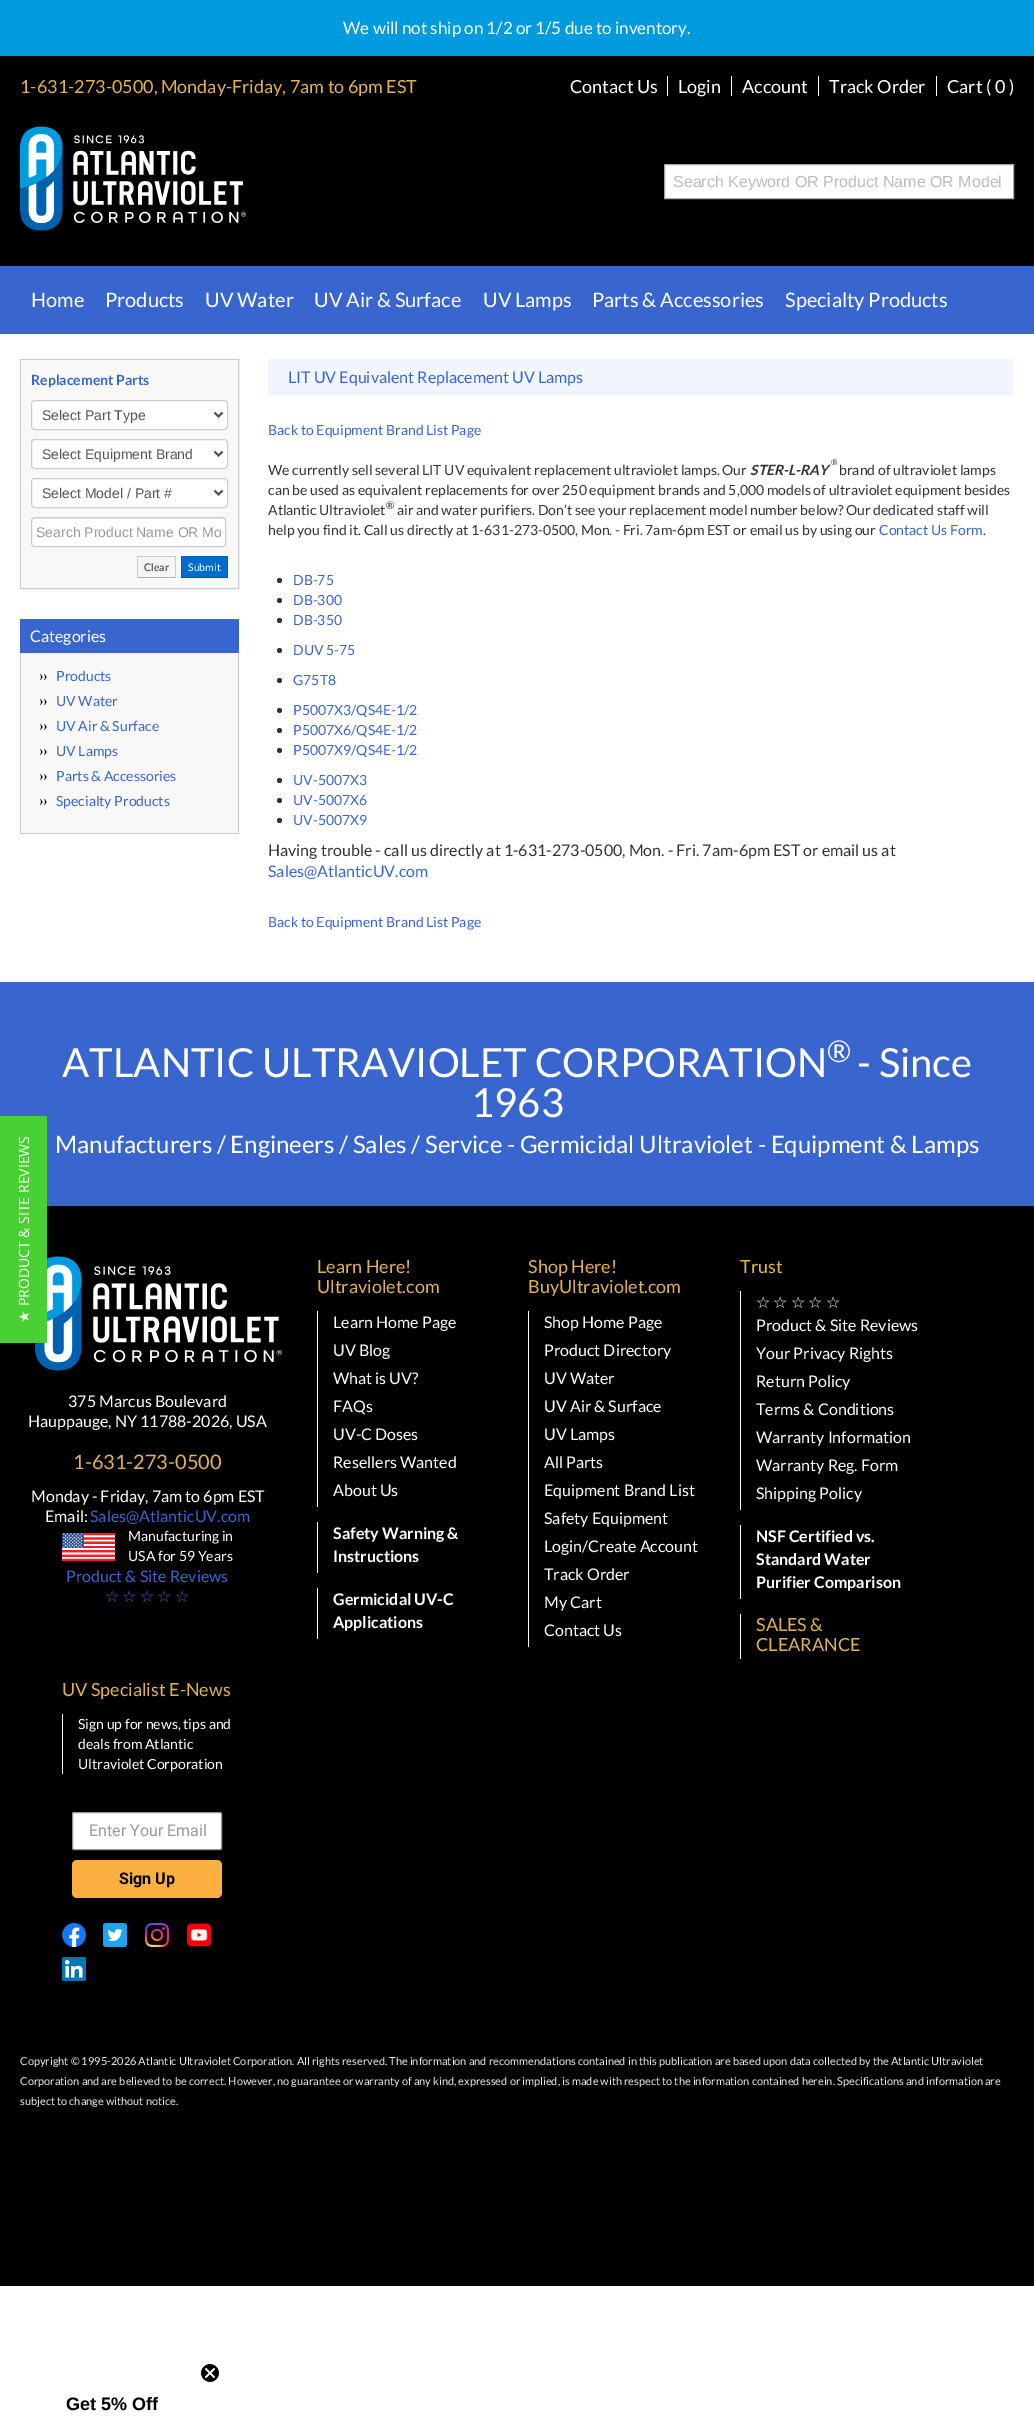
%!PS
<< /PageSize [1034 2429] /PageUsesTransparency true >> setpagedevice
/m/moveto load def
/l/rlineto load def
/c/rcurveto load def
/z/closepath load def
/f/fill load def
/s/stroke load def
/q/gsave load def
/Q_/grestore load def
/w/setlinewidth load def
/C { dup -16 bitshift 255 div exch dup -8 bitshift 255 and 255 div exch 255 and 255 div setrgbcolor } def
/F { [ exch dup neg 0 0 3 -1 roll 0 0 ] selectfont } def
/T { moveto show } def
/R { rectfill } def
/A { dup .setfillconstantalpha .setstrokeconstantalpha } def
/O { newpath 0 360 arc closepath } def
/Q { 5 dict begin { /r /h /w /y /x } { exch def } forall
  x r add y moveto x w add y 2 copy h add r arct x w add y h add x 1 index r arct
  x y h add x y r arct x y 2 copy exch w add exch r arct closepath end } def
/I { 5 dict begin { /h /w /y /x /name } { exch def } forall
  gsave x y translate w h scale
  w h 8 [w 0 0 h 0 0] name (r) file false 3 colorimage grestore end } def
0 .pushpdf14devicefilter
0 2429 translate 1 -1 scale
4 setmiterlimit
16#FFFFFF C
0 0 1034 2429 R
16#009BDF C
0 0 1034 56 R
/Lato-Regular 17 F
16#FFFFFF C
(We will not ship on 1/2 or 1/5 due to inventory.) 343 34 T
16#000000 C
0 56 1034 210 R
16#3965CF C
0 266 1034 68 R
/Lato-Regular 18 F
16#E2B252 C
(1-631-273-0500, Monday-Friday, 7am to 6pm EST) 20 93 T
16#FFFFFF C
667 76 1 20 R
(Contact Us) 570 93 T
731 76 1 20 R
(Login) 678 93 T
818 76 1 20 R
(Account) 742 93 T
936 76 1 20 R
(Track Order) 829 93 T
(Cart \( 0 \)) 947 93 T
/Lato-Regular 20 F
(Home) 31 307 T
(Products) 105 307 T
(UV Water) 205 307 T
(UV Air & Surface) 314 307 T
(UV Lamps) 483 307 T
(Parts & Accessories) 592 307 T
(Specialty Products) 785 307 T
(1.rgb) 20 126 226 105 I
664.5 164.5 m 349 0 l 0 34 l -349 0 l z q f Q_
16#A7A7A7 C
s
/LiberationSans-Regular 16 F
16#BBBBBB C
(Search Keyword OR Product Name OR Model) 673 187 T
16#CCCCCC C
20.5 359.5 218 229 rectstroke
16#F8F8F8 C
21 360 217 228 R
/Lato-Bold 14 F
16#3965CF C
(Replacement Parts) 31 385 T
16#FFFFFF C
31.5 400.5 196 29 3.5 Q q f Q_
16#CCCCCC C
s
16#555555 C
2 w
214.5 412.5 m 4 4 l 4 -4 l s
/LiberationSans-Regular 14 F
(Select Part Type) 42 420 T
16#FFFFFF C
31.5 439.5 196 29 3.5 Q q f Q_
16#CCCCCC C
1 w
s
16#555555 C
2 w
214.5 451.5 m 4 4 l 4 -4 l s
(Select Equipment Brand) 42 459 T
16#FFFFFF C
31.5 478.5 196 29 3.5 Q q f Q_
16#CCCCCC C
1 w
s
16#555555 C
2 w
214.5 490.5 m 4 4 l 4 -4 l s
(Select Model / Part #) 42 498 T
16#FFFFFF C
31 517 195 30 4 Q f
16#ECECEC C
35 519 m 187 0 l 2 0 3 1 3 3 c 0 -2 -1 -4 -3 -4 c -187 0 l -2 0 -3 2 -3 4 c 0 -2 1 -3 3 -3 c z f
16#CCCCCC C
1 w
31.5 517.5 194 29 3.5 Q s
q
36 524 185 16 rectclip
16#999999 C
(Search Product Name OR Mo) 36 537 T
Q_
16#F5F5F5 C
138 557 37 20 R
16#CCCCCC C
137 556 39 1 R
175 556 1 22 R
16#B3B3B3 C
137 577 39 1 R
16#CCCCCC C
137 556 1 22 R
/Lato-Regular 10.5 F
16#333333 C
(Clear) 144 571 T
16#006DCC C
181 556 47 22 R
16#0062B8 C
181 556 m 47 0 l -1 1 l -45 0 l z f
0.1 A
16#000000 C
228 556 m 0 22 l -1 -1 l 0 -20 l z f
0.25 A
228 578 m -47 0 l 1 -1 l 45 0 l z f
0.1 A
181 578 m 0 -22 l 1 1 l 0 20 l z f
1 A
16#FFFFFF C
(Submit) 188 571 T
16#3965CF C
20 619 219 34 R
/Lato-Regular 16 F
16#FFFFFF C
(Categories) 30 642 T
16#F8F8F8 C
21 653 217 180 R
16#CCCCCC C
238 653 1 181 R
20 833 219 1 R
20 653 1 181 R
(2.rgb) 40 674 7 6 I
/Lato-Regular 14 F
16#3965CF C
(Products) 56 681 T
(2.rgb) 40 699 7 6 I
(UV Water) 56 706 T
(2.rgb) 40 724 7 6 I
(UV Air & Surface) 56 731 T
(2.rgb) 40 749 7 6 I
(UV Lamps) 56 756 T
(2.rgb) 40 774 7 6 I
(Parts & Accessories) 56 781 T
(2.rgb) 40 799 7 6 I
(Specialty Products) 56 806 T
16#F0F5FF C
268 359 746 36 R
/Lato-Regular 16 F
16#3965CF C
(LIT UV Equivalent Replacement UV Lamps) 288 383 T
/Lato-Regular 14 F
(Back to Equipment Brand List Page) 268 435 T
/Lato-Regular 8 F
16#333333 C
(®) 831 465 T
/Lato-Regular 14 F
(We currently sell several LIT UV equivalent replacement ultraviolet lamps. Our) 268 475 T
/Lato-BoldItalic 14 F
(STER-L-RAY) 750 475 T
/Lato-Regular 14 F
(brand of ultraviolet lamps) 839 475 T
(can be used as equivalent replacements for over 250 equipment brands and 5,000 models of ultraviolet equipment besides) 268 495 T
(Atlantic Ultraviolet) 268 515 T
/Lato-Regular 10.5 F
(®) 386 509 T
/Lato-Regular 14 F
(air and water purifiers. Don’t see your replacement model number below? Our dedicated staff will) 397 515 T
(help you find it. Call us directly at 1-631-273-0500, Mon. - Fri. 7am-6pm EST or email us by using our) 268 535 T
16#3965CF C
(Contact Us Form) 879 535 T
16#333333 C
(.) 983 535 T
279.5 580.5 2.5 O f
16#3965CF C
(DB-75) 293 585 T
16#333333 C
279.5 600.5 2.5 O f
16#3965CF C
(DB-300) 293 605 T
16#333333 C
279.5 620.5 2.5 O f
16#3965CF C
(DB-350) 293 625 T
16#333333 C
279.5 650.5 2.5 O f
16#3965CF C
(DUV 5-75) 293 655 T
16#333333 C
279.5 680.5 2.5 O f
16#3965CF C
(G75T8) 293 685 T
16#333333 C
279.5 710.5 2.5 O f
16#3965CF C
(P5007X3/QS4E-1/2) 293 715 T
16#333333 C
279.5 730.5 2.5 O f
16#3965CF C
(P5007X6/QS4E-1/2) 293 735 T
16#333333 C
279.5 750.5 2.5 O f
16#3965CF C
(P5007X9/QS4E-1/2) 293 755 T
16#333333 C
279.5 780.5 2.5 O f
16#3965CF C
(UV-5007X3) 293 785 T
16#333333 C
279.5 800.5 2.5 O f
16#3965CF C
(UV-5007X6) 293 805 T
16#333333 C
279.5 820.5 2.5 O f
16#3965CF C
(UV-5007X9) 293 825 T
/Lato-Regular 16 F
16#333333 C
(Having trouble - call us directly at 1-631-273-0500, Mon. - Fri. 7am-6pm EST or email us at) 268 856 T
16#3965CF C
(Sales@AtlanticUV.com) 268 877 T
/Lato-Regular 14 F
(Back to Equipment Brand List Page) 268 927 T
0 982 1034 224 R
/Lato-Regular 40 F
16#FFFFFF C
(ATLANTIC ULTRAVIOLET CORPORATION) 62 1077 T
/Lato-Regular 30 F
(®) 827 1062 T
/Lato-Regular 40 F
(- Since) 857 1077 T
(1963) 471 1117 T
/Lato-Regular 24 F
(Manufacturers / Engineers / Sales / Service - Germicidal Ultraviolet - Equipment & Lamps) 55 1153 T
16#000000 C
0 1206 1034 1080 R
(3.rgb) 35 1256 247 115 I
/Lato-Regular 16 F
16#FFFFFF C
(375 Marcus Boulevard) 68 1407 T
(Hauppauge, NY 11788-2026, USA) 28 1427 T
/Lato-Regular 20 F
16#E2B252 C
(1-631-273-0500) 73 1469 T
/Lato-Regular 16 F
16#FFFFFF C
(Monday - Friday, 7am to 6pm EST) 31 1502 T
(Email:) 45 1522 T
16#3965CF C
(Sales@AtlanticUV.com) 90 1522 T
(4.rgb) 62 1533 53 28 I
/Lato-Regular 14 F
16#FFFFFF C
(Manufacturing in) 128 1541 T
(USA for 59 Years) 128 1561 T
/Lato-Regular 16 F
16#3965CF C
(Product & Site Reviews) 66 1582 T
/DejaVuSans-Regular 16 F
105 1602 m -2 0 32 (☆ ☆ ☆ ☆ ☆) widthshow
/Lato-Regular 18 F
16#E2B252 C
(Learn Here!) 317 1273 T
(Ultraviolet.com) 317 1293 T
16#FFFFFF C
317 1311 1 196 R
/Lato-Regular 16 F
(Learn Home Page) 333 1328 T
(UV Blog) 333 1356 T
(What is UV?) 333 1384 T
(FAQs) 333 1412 T
(UV-C Doses) 333 1440 T
(Resellers Wanted) 333 1468 T
(About Us) 333 1496 T
317 1522 1 51 R
/Lato-Bold 16 F
(Safety Warning &) 333 1539 T
(Instructions) 333 1562 T
317 1588 1 51 R
(Germicidal UV-C) 333 1605 T
(Applications) 333 1628 T
/Lato-Regular 18 F
16#E2B252 C
(Shop Here!) 528 1273 T
(BuyUltraviolet.com) 528 1293 T
16#FFFFFF C
528 1311 1 336 R
/Lato-Regular 16 F
(Shop Home Page) 544 1328 T
(Product Directory) 544 1356 T
(UV Water) 544 1384 T
(UV Air & Surface) 544 1412 T
(UV Lamps) 544 1440 T
(All Parts) 544 1468 T
(Equipment Brand List) 544 1496 T
(Safety Equipment) 544 1524 T
(Login/Create Account) 544 1552 T
(Track Order) 544 1580 T
(My Cart) 544 1608 T
(Contact Us) 544 1636 T
/Lato-Regular 18 F
16#E2B252 C
(Trust) 740 1273 T
16#FFFFFF C
740 1291 1 219 R
/DejaVuSans-Regular 16 F
756 1308 m -2 0 32 (☆ ☆ ☆ ☆ ☆) widthshow
/Lato-Regular 16 F
(Product & Site Reviews) 756 1331 T
(Your Privacy Rights) 756 1359 T
(Return Policy) 756 1387 T
(Terms & Conditions) 756 1415 T
(Warranty Information) 756 1443 T
(Warranty Reg. Form) 756 1471 T
(Shipping Policy) 756 1499 T
740 1525 1 74 R
/Lato-Bold 16 F
(NSF Certified vs.) 756 1542 T
(Standard Water) 756 1565 T
(Purifier Comparison) 756 1588 T
740 1614 1 45 R
/Lato-Regular 18 F
16#E2B252 C
(SALES &) 756 1631 T
(CLEARANCE) 756 1651 T
(UV Specialist E-News) 62 1696 T
16#FFFFFF C
62 1714 1 60 R
/Lato-Regular 14 F
(Sign up for news, tips and) 78 1729 T
(deals from Atlantic) 78 1749 T
(Ultraviolet Corporation) 78 1769 T
72.5 1812.5 149 37 1.5 Q q f Q_
16#949596 C
s
/Roboto-Regular 16 F
16#999999 C
(Enter Your Email) 89 1836 T
16#FCB042 C
72 1860 150 38 5 Q f
/Roboto-Bold 16 F
16#000000 C
(Sign Up) 119 1884 T
(5.rgb) 62 1923 24 24 I
(6.rgb) 103 1923 24 24 I
(7.rgb) 145 1923 24 24 I
(8.rgb) 187 1923 24 24 I
(9.rgb) 62 1957 24 24 I
/Lato-Regular 11 F
16#EBEBEB C
(Copyright © 1995-2026 Atlantic Ultraviolet Corporation. All rights reserved. The information and recommendations contained in this publication are based upon data collected by the Atlantic Ultraviolet) 20 2065 T
(Corporation and are believed to be correct. However, no guarantee or warranty of any kind, expressed or implied, is made with respect to the information contained herein. Specifications and information are) 20 2085 T
(subject to change without notice.) 20 2105 T
16#49D134 C
0 1116 47 227 R
/OpenSans-Regular 14 F
16#FFFFFF C
q 29 1193 translate -90 rotate 0 0 m (REVIEWS) show Q_
q 29 1224 translate -90 rotate 0 0 m (SITE) show Q_
q 29 1238 translate -90 rotate 0 0 m (&) show Q_
q 29 1306 translate -90 rotate 0 0 m (PRODUCT) show Q_
/DejaVuSans-Regular 14 F
q 29 1323 translate -90 rotate 0 0 m (★) show Q_
(10.rgb) 200 2363 20 20 I
/LiberationSans-Bold 18 F
16#000000 C
(Get 5% Off) 66 2410 T
.poppdf14devicefilter showpage
